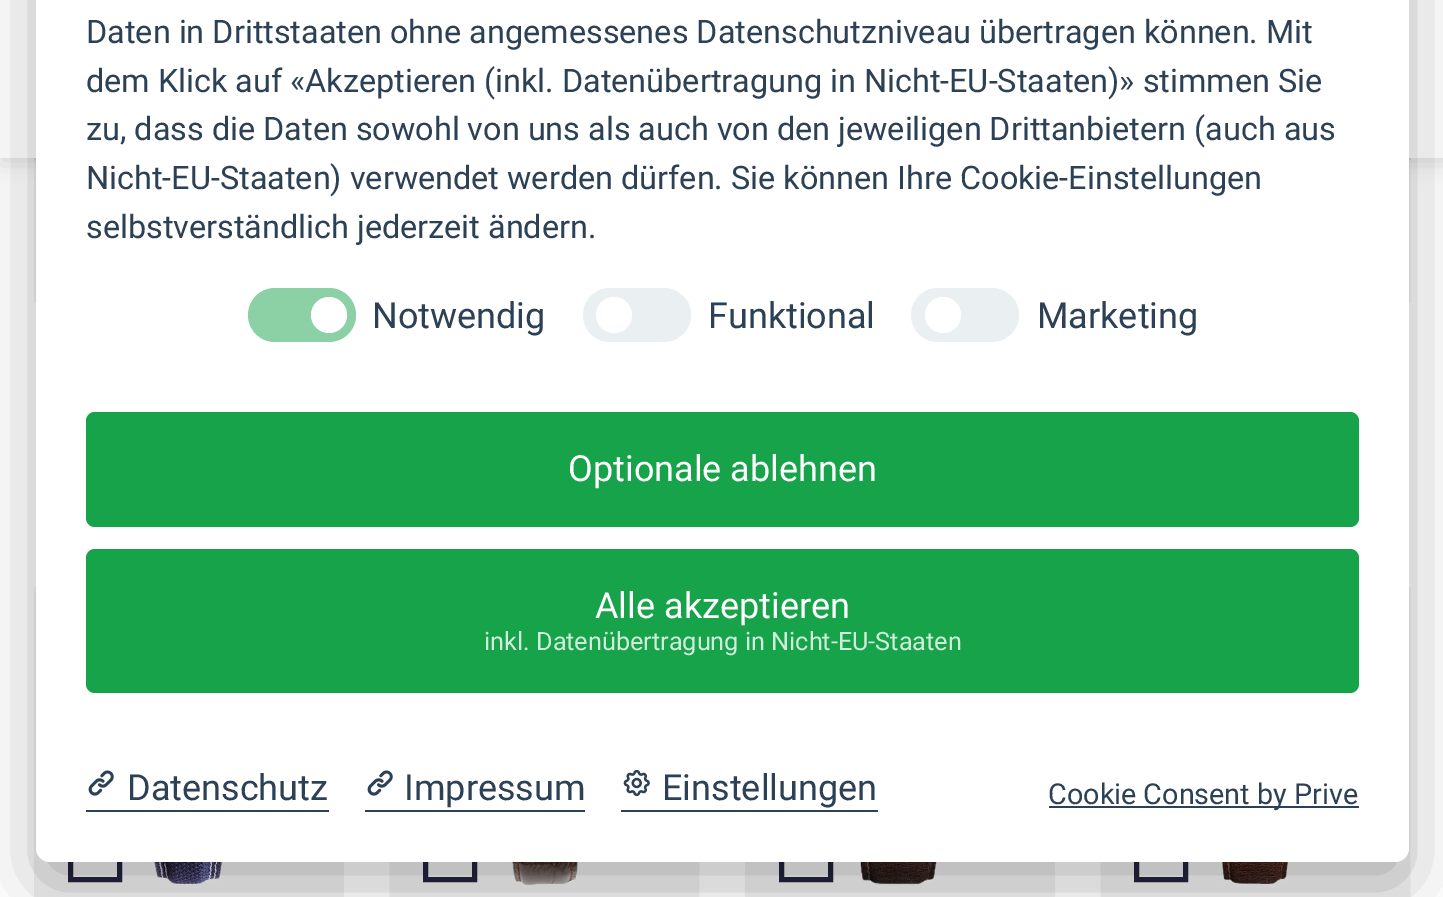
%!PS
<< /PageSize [1443 897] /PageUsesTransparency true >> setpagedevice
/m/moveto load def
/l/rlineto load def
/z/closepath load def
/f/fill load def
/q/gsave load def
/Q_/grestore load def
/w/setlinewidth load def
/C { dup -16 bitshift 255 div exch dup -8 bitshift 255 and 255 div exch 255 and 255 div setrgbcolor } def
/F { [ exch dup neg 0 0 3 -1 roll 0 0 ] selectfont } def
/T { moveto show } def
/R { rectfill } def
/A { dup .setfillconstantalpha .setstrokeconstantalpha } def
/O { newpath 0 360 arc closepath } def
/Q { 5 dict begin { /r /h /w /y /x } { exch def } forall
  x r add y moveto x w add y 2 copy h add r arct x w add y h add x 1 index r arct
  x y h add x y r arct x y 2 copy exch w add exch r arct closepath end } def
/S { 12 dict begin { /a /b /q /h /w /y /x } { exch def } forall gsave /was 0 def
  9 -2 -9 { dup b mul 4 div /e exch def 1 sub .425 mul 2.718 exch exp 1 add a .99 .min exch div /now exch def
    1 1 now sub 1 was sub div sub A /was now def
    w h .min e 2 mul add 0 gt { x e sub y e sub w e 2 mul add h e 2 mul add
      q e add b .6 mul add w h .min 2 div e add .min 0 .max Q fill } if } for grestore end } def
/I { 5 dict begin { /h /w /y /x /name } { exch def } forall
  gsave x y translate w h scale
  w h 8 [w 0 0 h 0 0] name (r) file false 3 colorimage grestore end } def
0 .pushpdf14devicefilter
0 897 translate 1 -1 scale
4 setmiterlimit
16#FFFFFF C
0 0 1443 897 R
(1.rgb) 34 0 2 303 I
(2.rgb) 1409 0 2 303 I
q
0 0 m 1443 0 l 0 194 l -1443 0 l z 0 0 m 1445 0 l 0 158 l -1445 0 l z eoclip newpath
16#000000 C
2 2 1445 158 0 11 .15 S
Q_
0.9 A
0 0 1443 158 R
0.1 A
16#545454 C
34 158 1377 2 R
1 A
(3.rgb) 34 587 310 310 I
16#21223B C
5 w
70.5 830.5 49 49 rectstroke
(4.rgb) 389 862 311 35 I
425.5 830.5 49 49 rectstroke
(5.rgb) 745 862 310 35 I
781.5 830.5 49 49 rectstroke
(6.rgb) 1100 587 311 310 I
1136.5 830.5 49 49 rectstroke
16#020203 C
36 -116 1373 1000 14 34 .28 S
16#FFFFFF C
36 -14 1373 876 14 Q f
/Roboto-Regular 32.4 F
16#2D4156 C
(Daten in Drittstaaten ohne angemessenes Datenschutzniveau übertragen können. Mit) 86 43 T
(dem Klick auf «Akzeptieren \(inkl. Datenübertragung in Nicht-EU-Staaten\)» stimmen Sie) 86 92 T
(zu, dass die Daten sowohl von uns als auch von den jeweiligen Drittanbietern \(auch aus) 86 140 T
(Nicht-EU-Staaten\) verwendet werden dürfen. Sie können Ihre Cookie-Einstellungen) 86 189 T
(selbstverständlich jederzeit ändern.) 86 238 T
16#8BD1A5 C
248 288 108 54 27 Q f
16#FFFFFF C
329 315 18 O f
/Roboto-Regular 36 F
16#2D4156 C
(Notwendig) 372 328 T
16#EAEFF2 C
583 288 108 54 27 Q f
16#FFFFFF C
614 315 18 O f
16#2D4156 C
(Funktional) 708 328 T
16#EAEFF2 C
911 288 108 54 27 Q f
16#FFFFFF C
943 315 18 O f
16#2D4156 C
(Marketing) 1037 328 T
16#16A34A C
86 412 1273 115 9 Q f
16#FFFFFF C
(Optionale ablehnen) 568 481 T
16#16A34A C
86 549 1273 144 9 Q f
16#FFFFFF C
(Alle akzeptieren) 595 618 T
/Roboto-Regular 25.25 F
16#D0EDDB C
(inkl. Datenübertragung in Nicht-EU-Staaten) 484 650 T
16#2D4156 C
86 810 243 2 R
(7.rgb) 88 770 26 26 I
/Roboto-Regular 36 F
(Datenschutz) 127 800 T
365 810 220 2 R
(7.rgb) 367 770 26 26 I
(Impressum) 404 800 T
621 810 257 2 R
(8.rgb) 623 769 27 28 I
(Einstellungen) 662 800 T
1049 806 310 2 R
/Roboto-Regular 28.75 F
(Cookie Consent by Prive) 1048 804 T
.poppdf14devicefilter showpage
